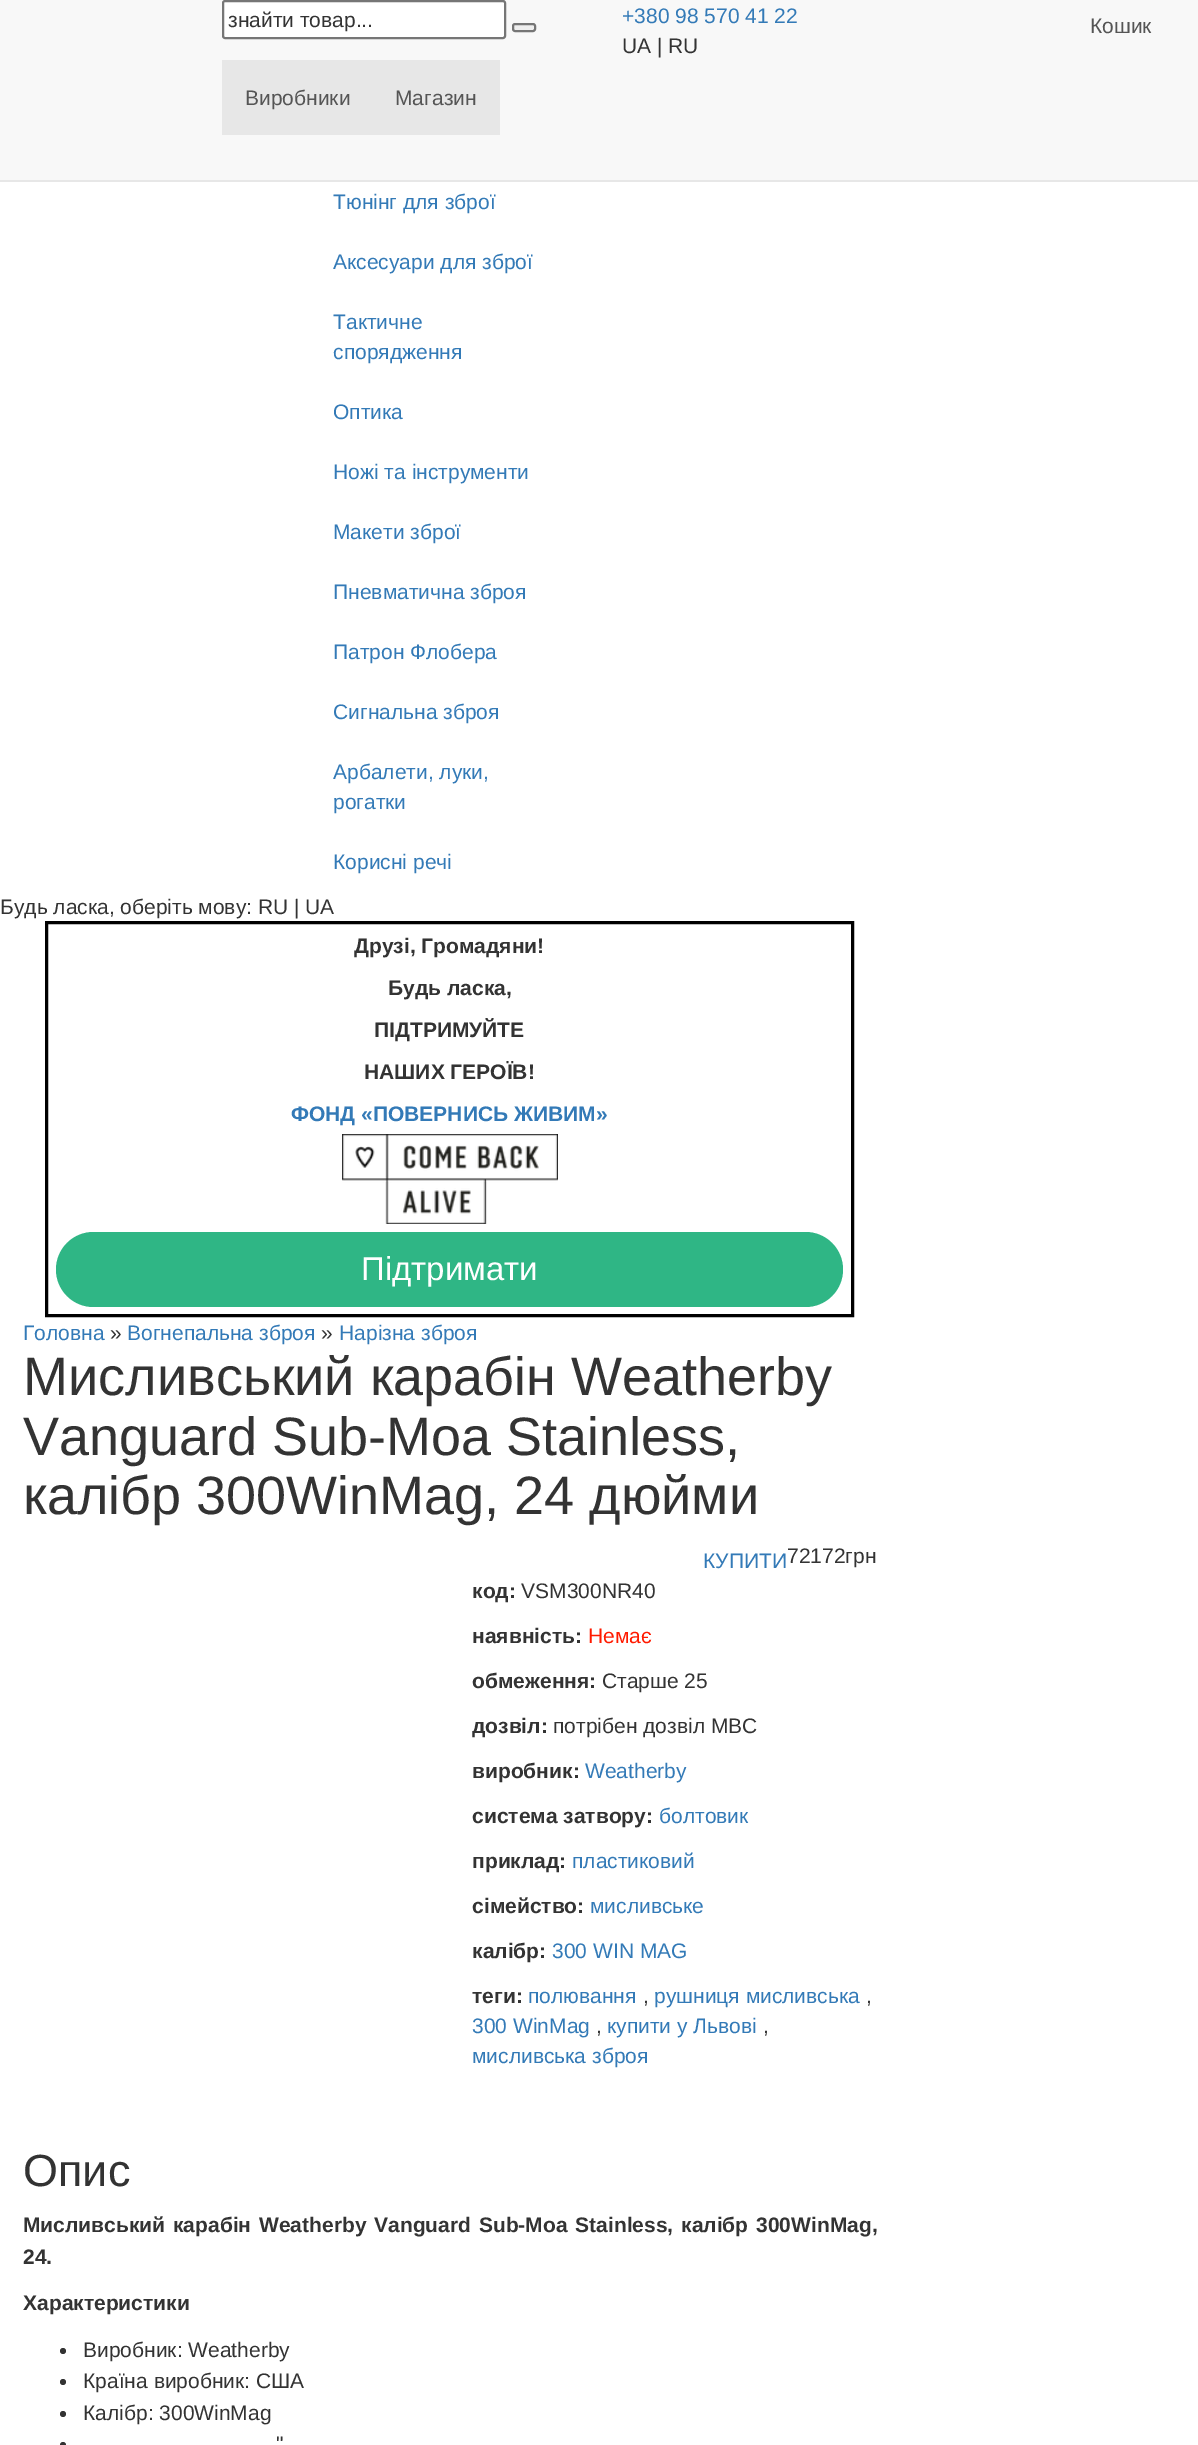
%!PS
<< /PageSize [1198 2445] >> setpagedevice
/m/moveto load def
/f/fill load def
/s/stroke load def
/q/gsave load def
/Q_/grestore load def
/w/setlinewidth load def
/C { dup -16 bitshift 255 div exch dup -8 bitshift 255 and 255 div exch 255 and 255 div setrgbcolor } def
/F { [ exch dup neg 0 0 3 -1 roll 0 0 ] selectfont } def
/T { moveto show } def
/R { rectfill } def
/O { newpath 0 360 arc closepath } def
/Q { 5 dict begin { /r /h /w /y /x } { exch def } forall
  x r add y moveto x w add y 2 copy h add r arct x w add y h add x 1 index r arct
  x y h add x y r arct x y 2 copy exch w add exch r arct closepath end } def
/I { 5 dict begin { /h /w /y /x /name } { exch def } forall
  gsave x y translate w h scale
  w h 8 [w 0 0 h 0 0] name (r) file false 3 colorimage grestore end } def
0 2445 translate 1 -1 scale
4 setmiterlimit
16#FFFFFF C
0 0 1198 2445 R
16#F8F8F8 C
0 0 1198 180 R
16#E7E7E7 C
0 180 1198 2 R
16#FFFFFF C
223 1 282 37 2 Q q f Q_
16#767676 C
2 w
s
/LiberationSans-Regular 21 F
16#333333 C
(знайти товар...) 228 27 T
16#EFEFEF C
513 24 22 7 2 Q q f Q_
16#767676 C
s
16#337AB7 C
(+380 98 570 41 22) 622 23 T
16#333333 C
(UA | RU) 622 53 T
16#E7E7E7 C
222 60 278 75 R
16#555555 C
(Виробники) 245 105 T
(Магазин) 395 105 T
(Кошик) 1090 33 T
16#337AB7 C
(Тюнінг для зброї) 333 209 T
(Аксесуари для зброї) 333 269 T
(Тактичне) 333 329 T
(спорядження) 333 359 T
(Оптика) 333 419 T
(Ножі та інструменти) 333 479 T
(Макети зброї) 333 539 T
(Пневматична зброя) 333 599 T
(Патрон Флобера) 333 659 T
(Сигнальна зброя) 333 719 T
(Арбалети, луки,) 333 779 T
(рогатки) 333 809 T
(Корисні речі) 333 869 T
16#333333 C
(Будь ласка, оберіть мову: RU | UA) 0 914 T
16#000000 C
3 w
46.5 922.5 806 393 rectstroke
/LiberationSans-Bold 21 F
16#333333 C
(Друзі, Громадяни!) 354 953 T
(Будь ласка,) 388 995 T
(ПІДТРИМУЙТЕ) 374 1037 T
(НАШИХ ГЕРОЇВ!) 364 1079 T
16#337AB7 C
(ФОНД «ПОВЕРНИСЬ ЖИВИМ») 291 1121 T
(1.rgb) 342 1134 216 90 I
16#2FB685 C
56 1232 787 75 37.5 Q f
/LiberationSans-Regular 33 F
16#FFFFFF C
(Підтримати) 361 1280 T
/LiberationSans-Regular 21 F
16#337AB7 C
(Головна) 23 1340 T
16#333333 C
(») 110 1340 T
16#337AB7 C
(Вогнепальна зброя) 127 1340 T
16#333333 C
(») 321 1340 T
16#337AB7 C
(Нарізна зброя) 339 1340 T
/LiberationSans-Regular 54 F
16#333333 C
(Мисливський карабін Weatherby) 23 1395 T
(Vanguard Sub-Moa Stainless,) 23 1455 T
(калібр 300WinMag, 24 дюйми) 23 1514 T
/LiberationSans-Regular 21 F
16#337AB7 C
(КУПИТИ) 703 1568 T
16#333333 C
(72172грн) 787 1563 T
/LiberationSans-Bold 21 F
(код:) 472 1598 T
/LiberationSans-Regular 21 F
(VSM300NR40) 521 1598 T
/LiberationSans-Bold 21 F
(наявність:) 472 1643 T
/LiberationSans-Regular 21 F
16#FF1A00 C
(Немає) 588 1643 T
/LiberationSans-Bold 21 F
16#333333 C
(обмеження:) 472 1688 T
/LiberationSans-Regular 21 F
(Старше 25) 602 1688 T
/LiberationSans-Bold 21 F
(дозвіл:) 472 1733 T
/LiberationSans-Regular 21 F
(потрібен дозвіл МВС) 553 1733 T
/LiberationSans-Bold 21 F
(виробник:) 472 1778 T
/LiberationSans-Regular 21 F
16#337AB7 C
(Weatherby) 585 1778 T
/LiberationSans-Bold 21 F
16#333333 C
(система затвору:) 472 1823 T
/LiberationSans-Regular 21 F
16#337AB7 C
(болтовик) 659 1823 T
/LiberationSans-Bold 21 F
16#333333 C
(приклад:) 472 1868 T
/LiberationSans-Regular 21 F
16#337AB7 C
(пластиковий) 572 1868 T
/LiberationSans-Bold 21 F
16#333333 C
(сімейство:) 472 1913 T
/LiberationSans-Regular 21 F
16#337AB7 C
(мисливське) 590 1913 T
/LiberationSans-Bold 21 F
16#333333 C
(калібр:) 472 1958 T
/LiberationSans-Regular 21 F
16#337AB7 C
(300 WIN MAG) 552 1958 T
/LiberationSans-Bold 21 F
16#333333 C
(теги:) 472 2003 T
/LiberationSans-Regular 21 F
16#337AB7 C
(полювання) 528 2003 T
16#333333 C
(,) 643 2003 T
16#337AB7 C
(рушниця мисливська) 654 2003 T
16#333333 C
(,) 866 2003 T
16#337AB7 C
(300 WinMag) 472 2033 T
16#333333 C
(,) 596 2033 T
16#337AB7 C
(купити у Львові) 607 2033 T
16#333333 C
(,) 763 2033 T
16#337AB7 C
(мисливська зброя) 472 2063 T
/LiberationSans-Regular 45 F
16#333333 C
(Опис) 23 2186 T
/LiberationSans-Bold 21 F
23 2232 m 2 0 32 (Мисливський карабін Weatherby Vanguard Sub-Moa Stainless, калібр 300WinMag,) widthshow
(24.) 23 2264 T
(Характеристики) 23 2310 T
63 2351 3 O f
/LiberationSans-Regular 21 F
(Виробник: Weatherby) 83 2357 T
63 2382 3 O f
(Країна виробник: США) 83 2388 T
63 2414 3 O f
(Калібр: 300WinMag) 83 2420 T
(") 276 2451 T
63 2445 3 O f
showpage
